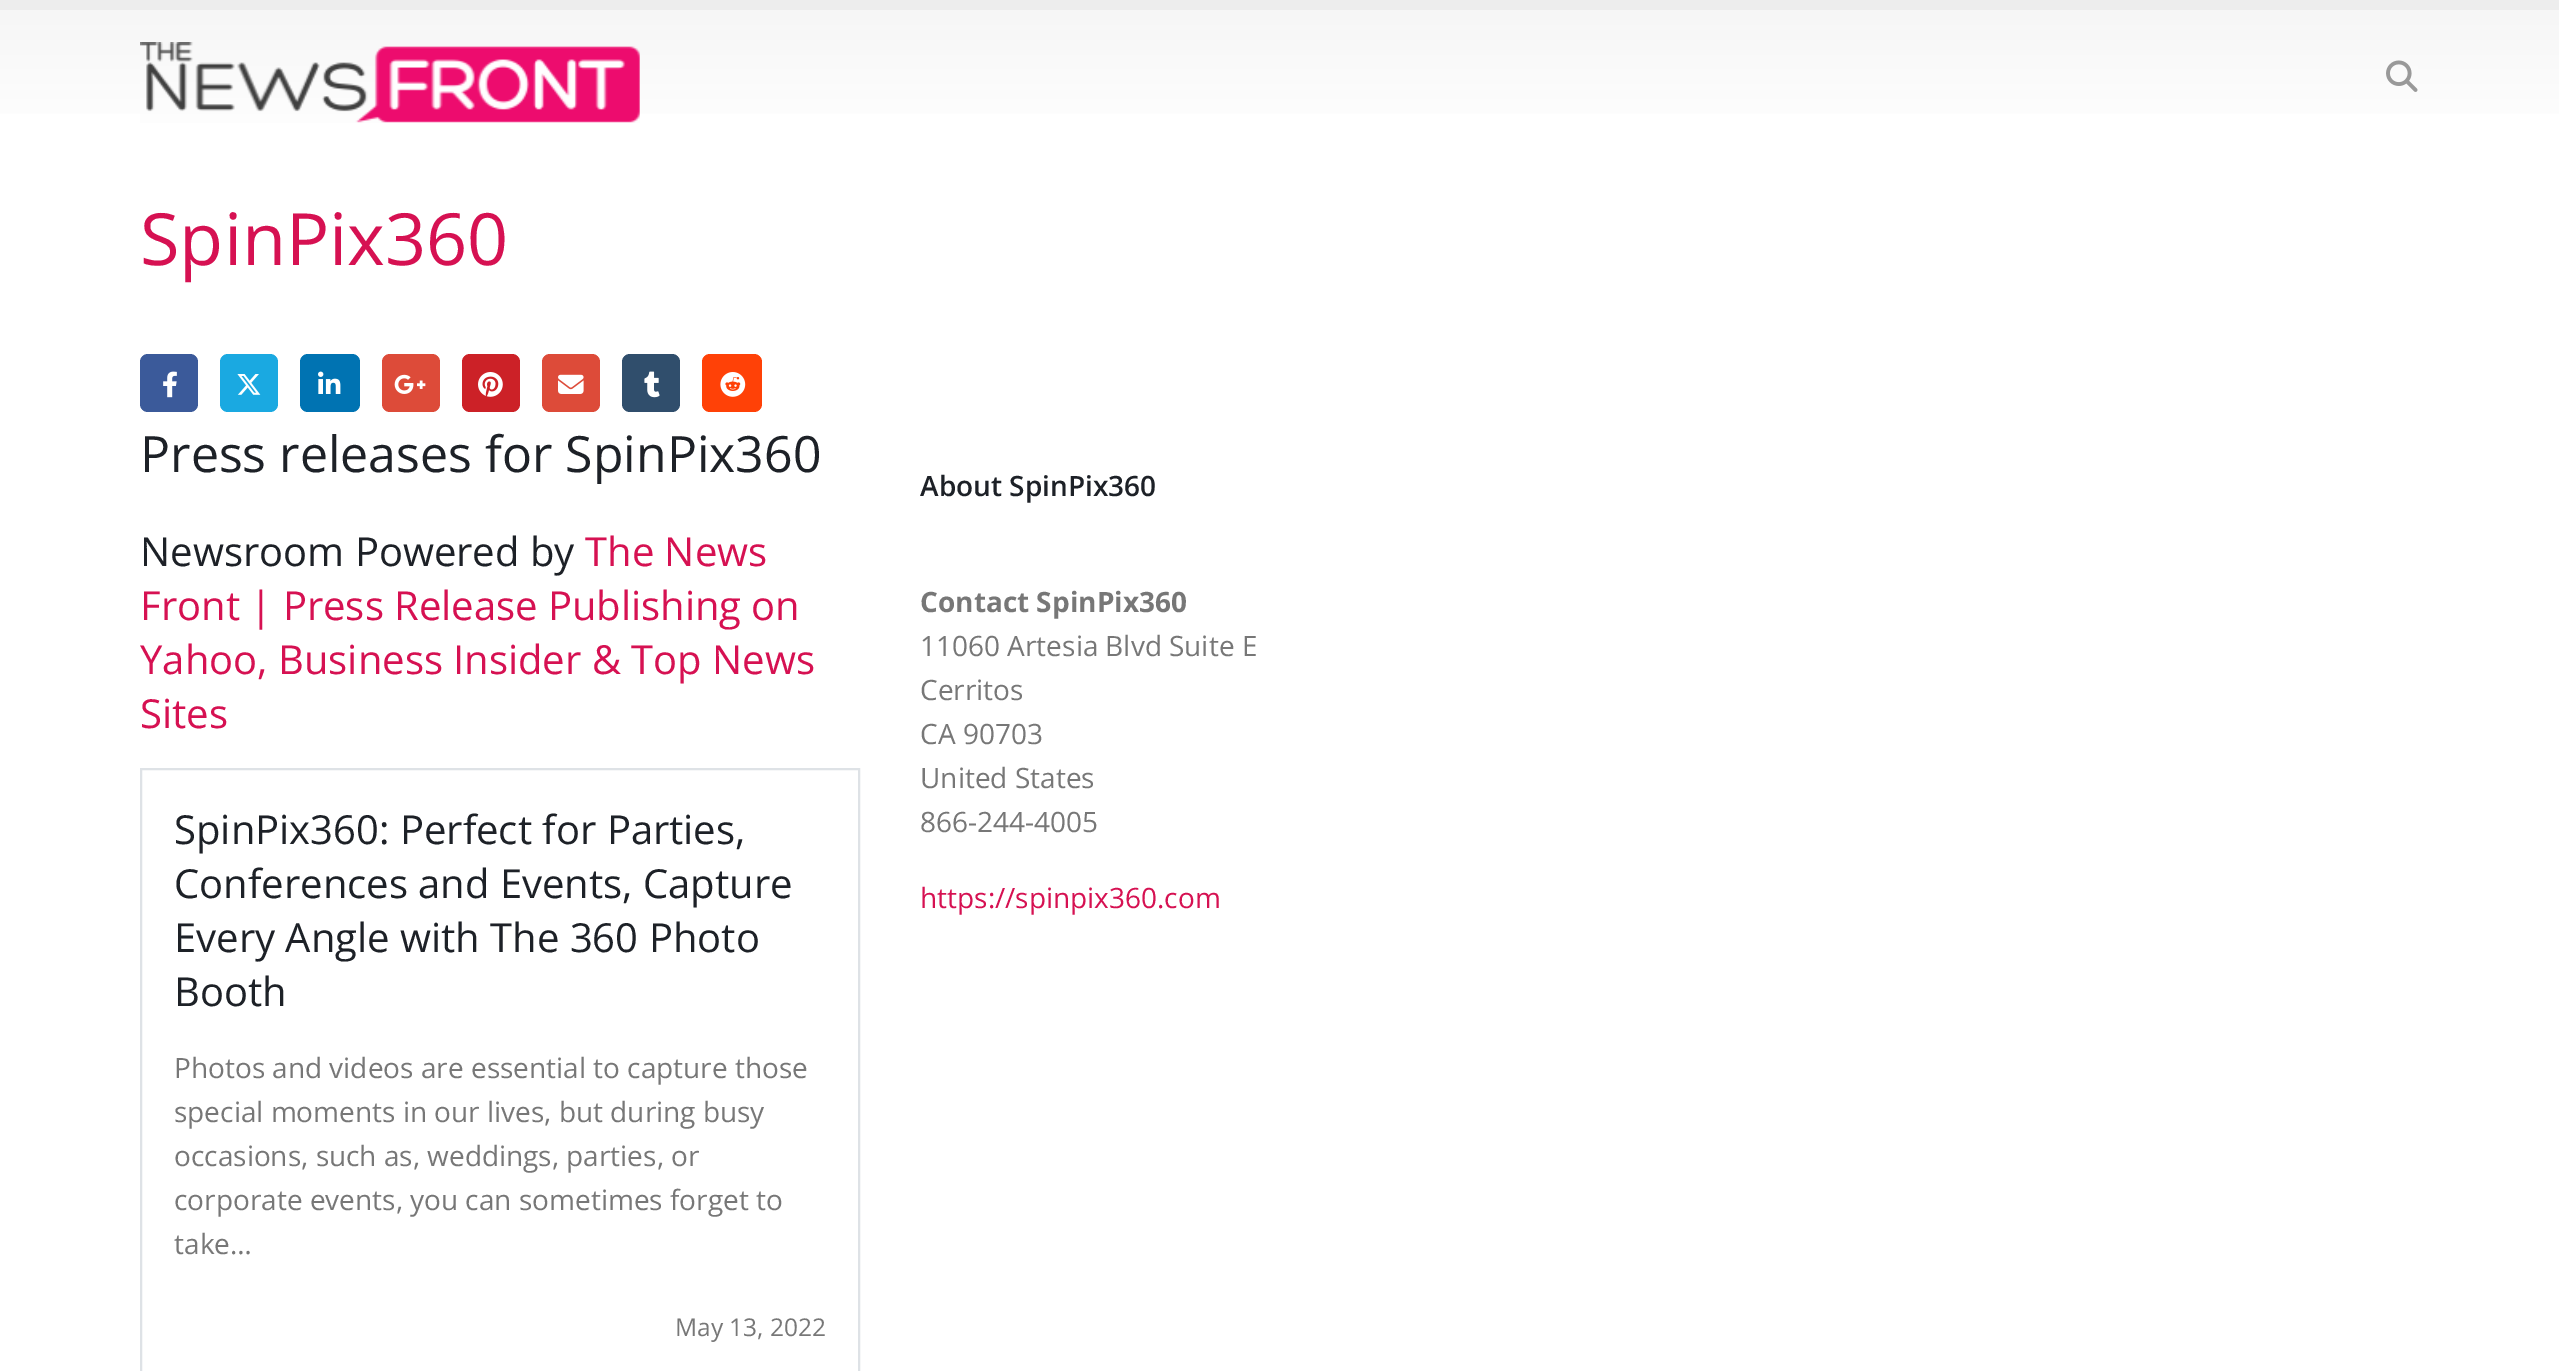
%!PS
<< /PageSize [2559 1371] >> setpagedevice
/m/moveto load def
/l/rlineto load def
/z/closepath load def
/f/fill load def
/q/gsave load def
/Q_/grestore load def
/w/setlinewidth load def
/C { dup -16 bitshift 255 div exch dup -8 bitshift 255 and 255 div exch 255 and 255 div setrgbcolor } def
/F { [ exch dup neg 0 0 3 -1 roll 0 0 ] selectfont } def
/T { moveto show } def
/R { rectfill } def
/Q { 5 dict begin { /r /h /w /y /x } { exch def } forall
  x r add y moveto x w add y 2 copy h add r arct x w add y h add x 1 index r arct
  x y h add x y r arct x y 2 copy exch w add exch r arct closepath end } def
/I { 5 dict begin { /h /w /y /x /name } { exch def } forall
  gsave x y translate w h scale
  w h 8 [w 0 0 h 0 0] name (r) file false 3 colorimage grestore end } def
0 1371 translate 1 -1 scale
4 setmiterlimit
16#FFFFFF C
0 0 2559 1371 R
16#EDEDED C
0 0 2559 10 R
q 0 10 m 2559 0 l 0 104 l -2559 0 l z clip newpath
<< /ShadingType 2 /ColorSpace /DeviceRGB /Coords [1280 10 1280 154] /Extend [true true] /Function << /FunctionType 2 /Domain [0 1] /C0 [.965 .965 .965] /C1 [1 1 1] /N 1 >> >> shfill Q_
(1.rgb) 140 42 500 81 I
(2.rgb) 2386 60 32 32 I
/OpenSans-Regular 72 F
16#D61152 C
(SpinPix360) 140 265 T
16#3B5A9A C
140 354 58 58 8 Q f
(3.rgb) 163 371 14 27 I
16#1AA9E1 C
220 354 58 58 8 Q f
(4.rgb) 237 374 24 21 I
16#0073B2 C
300 354 60 58 8 Q f
(5.rgb) 318 371 23 23 I
16#DD4B39 C
382 354 58 58 8 Q f
(6.rgb) 394 374 32 20 I
16#CC2127 C
462 354 58 58 8 Q f
(7.rgb) 478 372 25 25 I
16#DD4B39 C
542 354 58 58 8 Q f
(8.rgb) 558 374 26 20 I
16#304E6C C
622 354 58 58 8 Q f
(9.rgb) 644 371 16 27 I
16#FF4107 C
702 354 60 58 8 Q f
(10.rgb) 720 372 26 25 I
/OpenSans-Regular 50 F
16#1D2127 C
(Press releases for SpinPix360) 140 472 T
/OpenSans-Regular 40 F
(Newsroom Powered by) 140 566 T
16#D61152 C
(The News) 585 566 T
(Front | Press Release Publishing on) 140 620 T
(Yahoo, Business Insider & Top News) 140 674 T
(Sites) 140 728 T
16#DEE2E6 C
2 w
141 769 718 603 rectstroke
16#1D2127 C
(SpinPix360: Perfect for Parties,) 174 844 T
(Conferences and Events, Capture) 174 898 T
(Every Angle with The 360 Photo) 174 952 T
(Booth) 174 1006 T
/OpenSans-Regular 28 F
16#777777 C
(Photos and videos are essential to capture those) 174 1078 T
(special moments in our lives, but during busy) 174 1122 T
(occasions, such as, weddings, parties, or) 174 1166 T
(corporate events, you can sometimes forget to) 174 1210 T
(take…) 174 1254 T
/OpenSans-Regular 24.5 F
(May 13, 2022) 675 1336 T
/OpenSans-SemiBold 28 F
16#1D2127 C
(About SpinPix360) 920 496 T
/OpenSans-Bold 28 F
16#777777 C
(Contact SpinPix360) 920 612 T
/OpenSans-Regular 28 F
(11060 Artesia Blvd Suite E) 920 656 T
(Cerritos) 920 700 T
(CA 90703) 920 744 T
(United States) 920 788 T
(866-244-4005) 920 832 T
16#D61152 C
(https://spinpix360.com) 920 908 T
showpage
